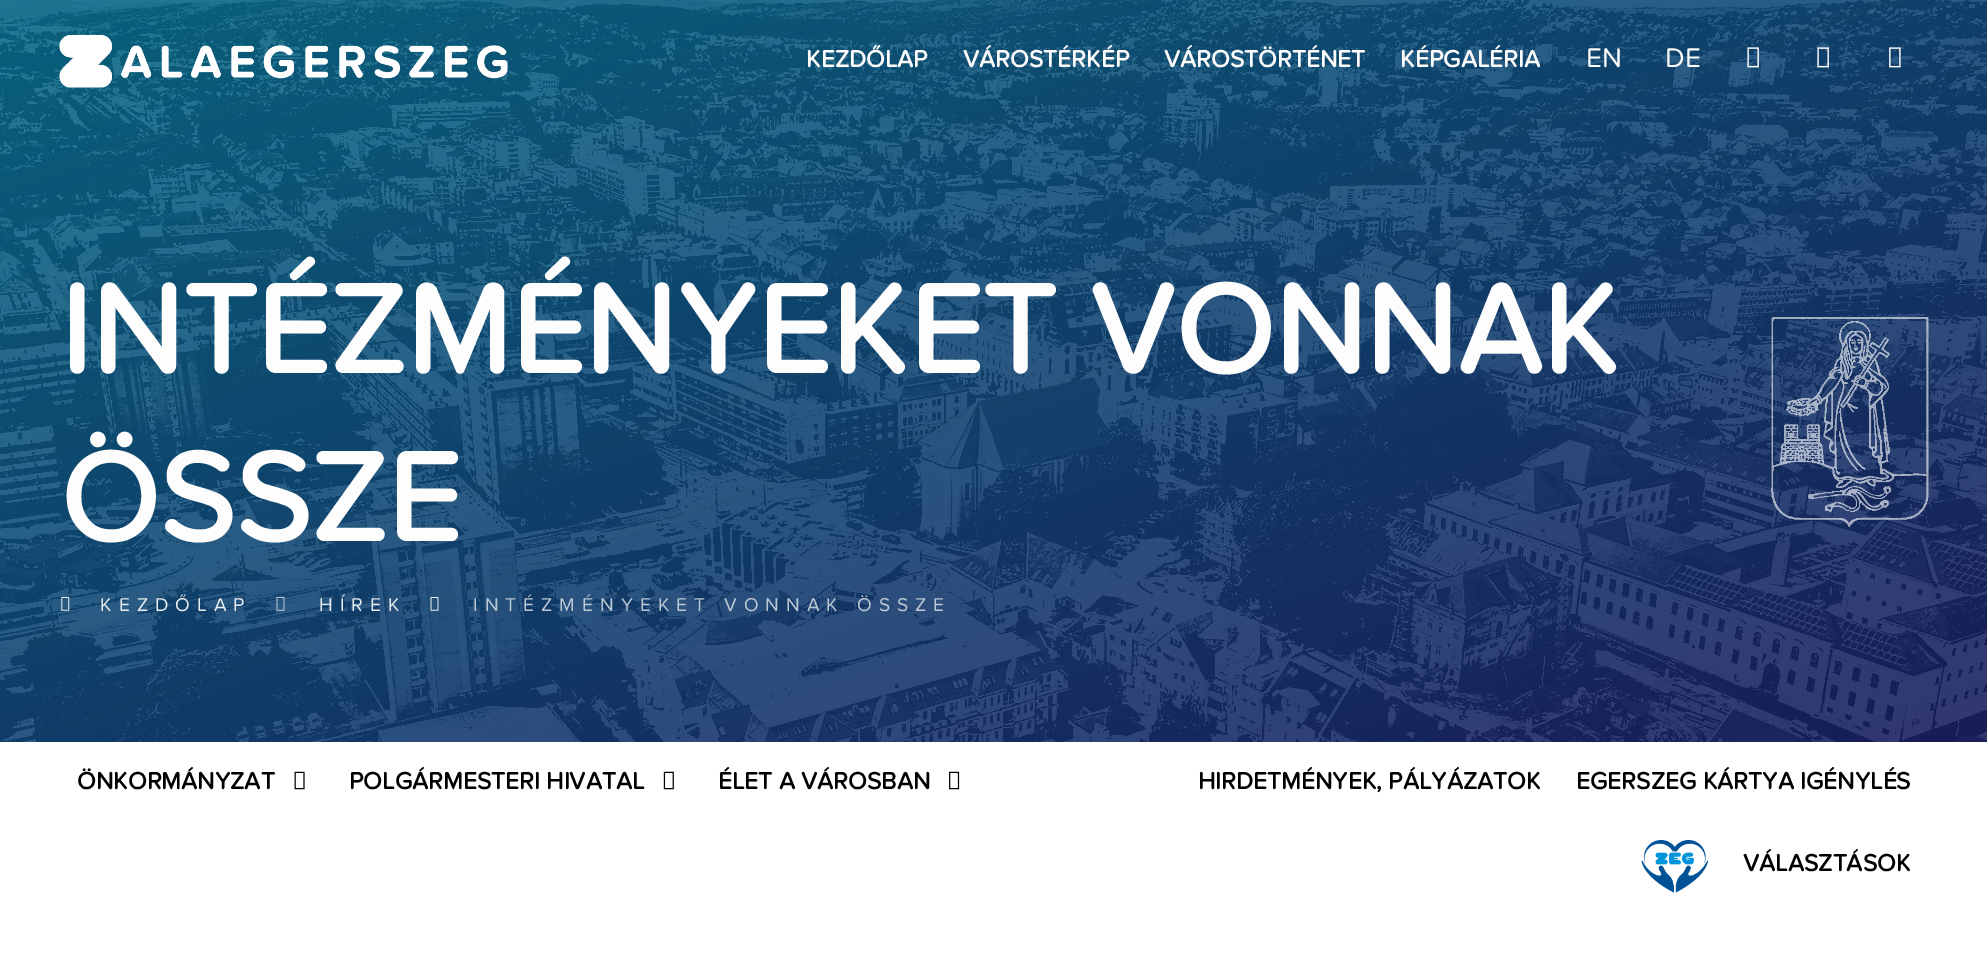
%!PS
<< /PageSize [1987 961] >> setpagedevice
/m/moveto load def
/l/rlineto load def
/z/closepath load def
/q/gsave load def
/Q_/grestore load def
/C { dup -16 bitshift 255 div exch dup -8 bitshift 255 and 255 div exch 255 and 255 div setrgbcolor } def
/F { [ exch dup neg 0 0 3 -1 roll 0 0 ] selectfont } def
/T { moveto show } def
/R { rectfill } def
/I { 5 dict begin { /h /w /y /x /name } { exch def } forall
  gsave x y translate w h scale
  w h 8 [w 0 0 h 0 0] name (r) file false 3 colorimage grestore end } def
0 961 translate 1 -1 scale
4 setmiterlimit
16#FFFFFF C
0 0 1987 961 R
q 0 0 m 1987 0 l 0 742 l -1987 0 l z clip newpath
<< /ShadingType 2 /ColorSpace /DeviceRGB /Coords [774 -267 1214 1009] /Extend [true true] /Function << /FunctionType 2 /Domain [0 1] /C0 [.035 .42 .537] /C1 [.102 .118 .369] /N 1 >> >> shfill Q_
(5.rgb) 0 0 1987 742 I
(1.rgb) 59 35 449 53 I
/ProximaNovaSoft-Bold 24.5 F
16#FDFDFD C
(KEZDŐLAP) 806 67 T
(VÁROSTÉRKÉP) 963 67 T
(VÁROSTÖRTÉNET) 1164 67 T
(KÉPGALÉRIA) 1400 67 T
/ProximaNovaSoft-Regular 28 F
(EN) 1586 67 T
(DE) 1665 67 T
(2.rgb) 1747 47 12 21 I
(3.rgb) 1817 47 12 21 I
(4.rgb) 1889 47 12 21 I
/ProximaNovaSoft-Bold 129.5 F
(INTÉZMÉNYEKET VONNAK) 60 373 T
(ÖSSZE) 60 541 T
(6.rgb) 1771 317 158 210 I
(7.rgb) 61 597 9 14 I
/ProximaNovaSoft-Regular 19.25 F
16#E8EDF1 C
100 611 m 7 0 (KEZDŐLAP) ashow
(8.rgb) 276 597 9 14 I
319 611 m 7 0 (HÍREK) ashow
(9.rgb) 430 597 9 14 I
16#BDC8D5 C
473 611 m 7 0 (INTÉZMÉNYEKET VONNAK ÖSSZE) ashow
/ProximaNovaSoft-Bold 24.5 F
16#000000 C
(ÖNKORMÁNYZAT) 77 789 T
(10.rgb) 294 771 11 19 I
(POLGÁRMESTERI HIVATAL) 349 789 T
(11.rgb) 663 771 11 19 I
(ÉLET A VÁROSBAN) 718 789 T
(12.rgb) 949 771 11 19 I
(HIRDETMÉNYEK, PÁLYÁZATOK) 1198 789 T
(EGERSZEG KÁRTYA IGÉNYLÉS) 1576 789 T
(13.rgb) 1641 840 67 53 I
(VÁLASZTÁSOK) 1743 871 T
showpage
